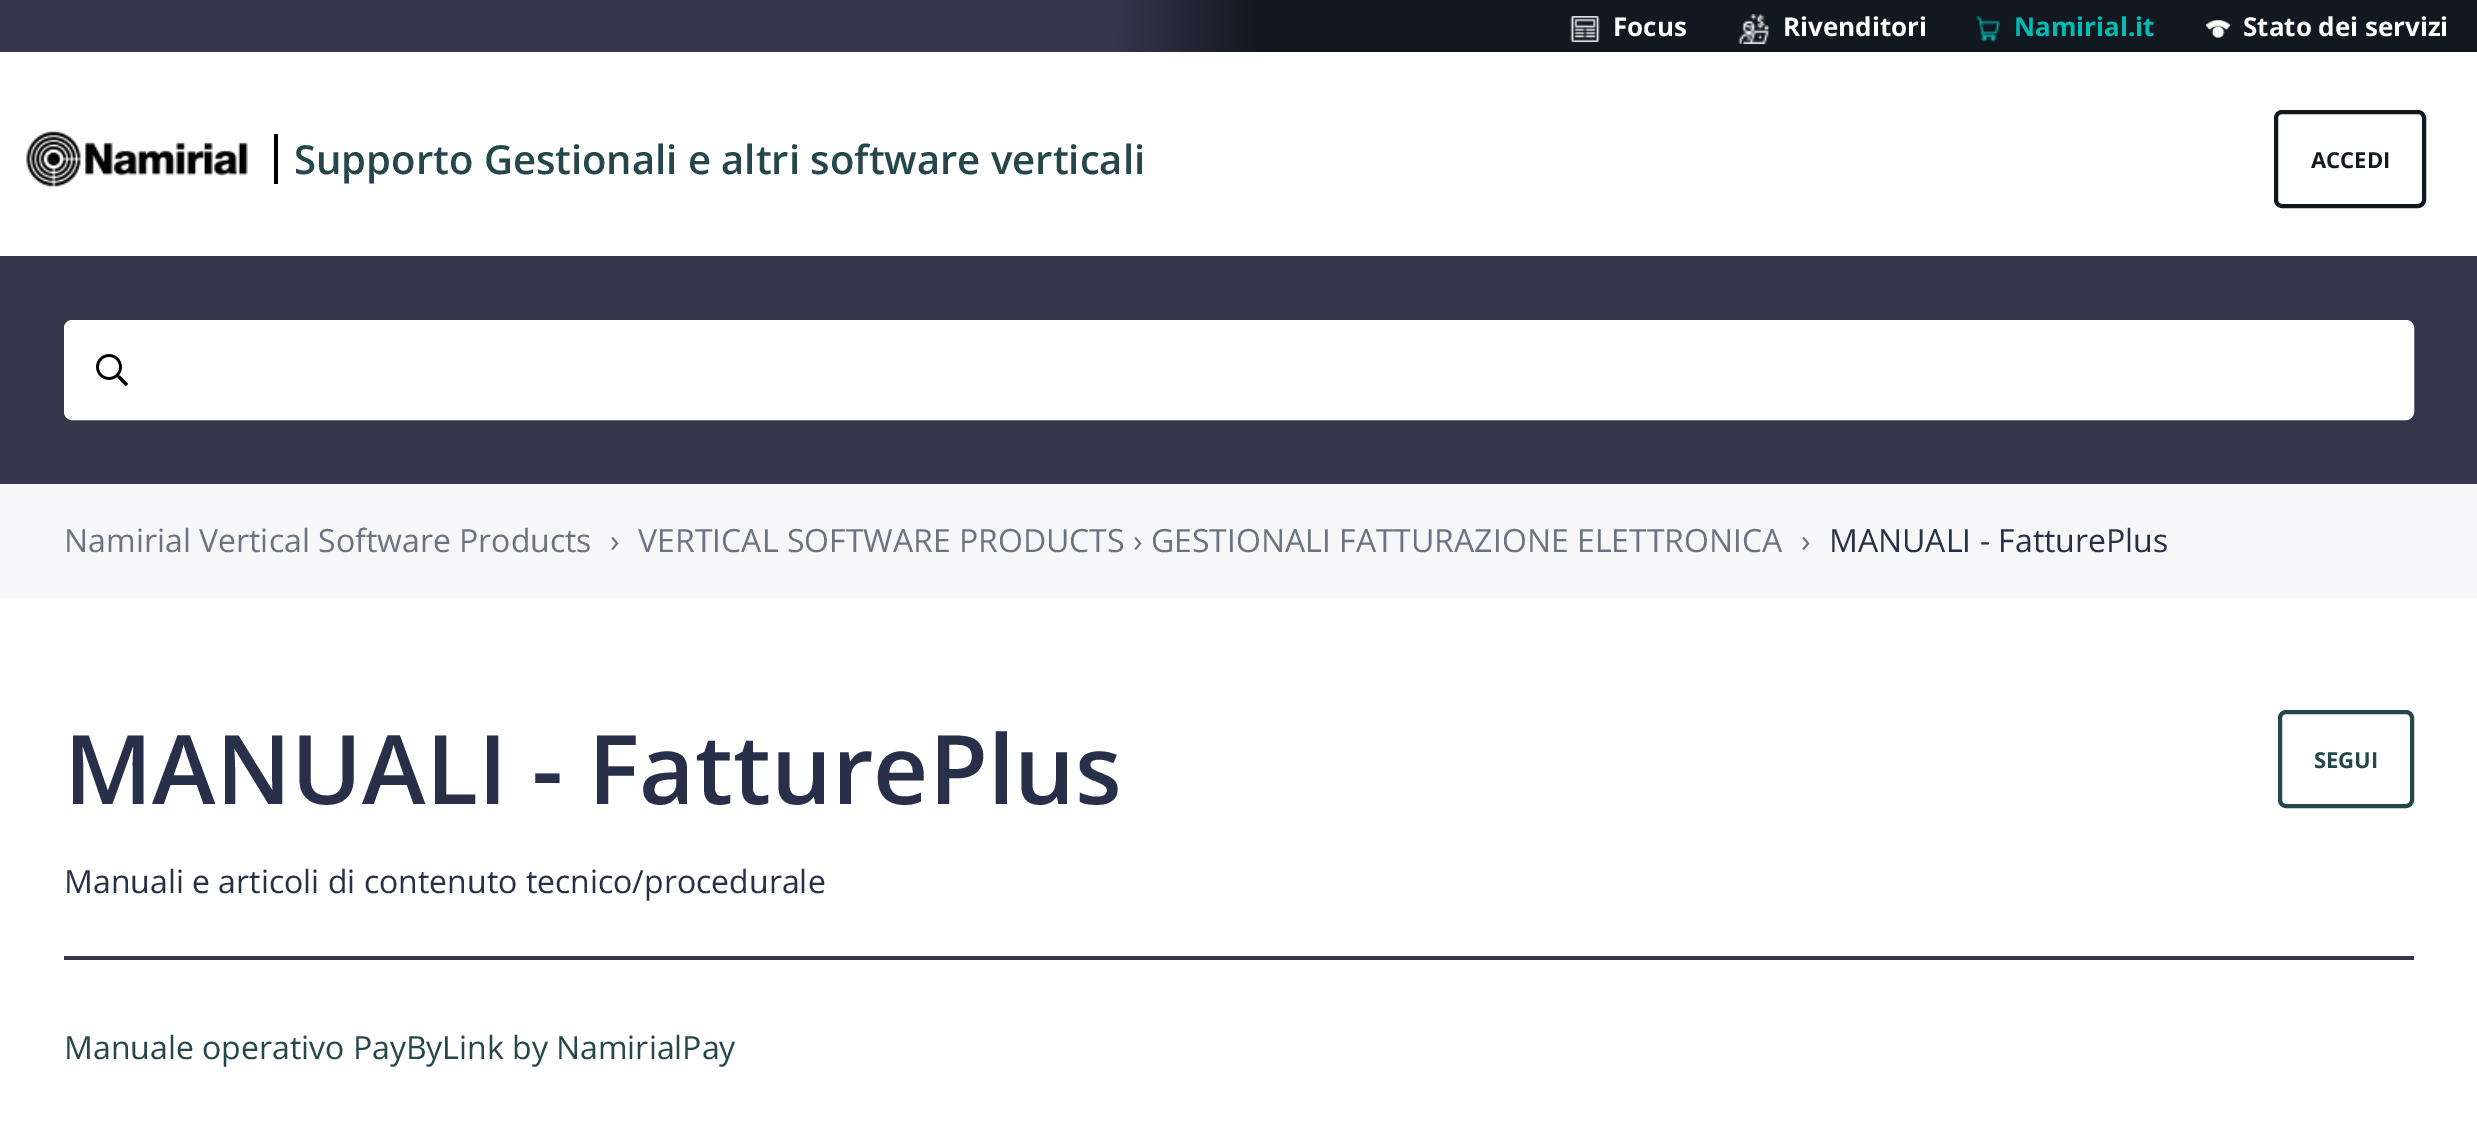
%!PS
<< /PageSize [2477 1129] >> setpagedevice
/m/moveto load def
/l/rlineto load def
/z/closepath load def
/f/fill load def
/s/stroke load def
/q/gsave load def
/Q_/grestore load def
/w/setlinewidth load def
/C { dup -16 bitshift 255 div exch dup -8 bitshift 255 and 255 div exch 255 and 255 div setrgbcolor } def
/F { [ exch dup neg 0 0 3 -1 roll 0 0 ] selectfont } def
/T { moveto show } def
/R { rectfill } def
/Q { 5 dict begin { /r /h /w /y /x } { exch def } forall
  x r add y moveto x w add y 2 copy h add r arct x w add y h add x 1 index r arct
  x y h add x y r arct x y 2 copy exch w add exch r arct closepath end } def
/I { 5 dict begin { /h /w /y /x /name } { exch def } forall
  gsave x y translate w h scale
  w h 8 [w 0 0 h 0 0] name (r) file false 3 colorimage grestore end } def
0 1129 translate 1 -1 scale
4 setmiterlimit
16#FFFFFF C
0 0 2477 1129 R
q 0 0 m 2477 0 l 0 52 l -2477 0 l z clip newpath
<< /ShadingType 2 /ColorSpace /DeviceRGB /Coords [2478 34 -.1 18] /Extend [true true] /Function << /FunctionType 3 /Domain [0 1] /Functions [<< /FunctionType 2 /Domain [0 1] /C0 [.067 .094 .125] /C1 [.067 .094 .125] /N 1 >> << /FunctionType 2 /Domain [0 1] /C0 [.067 .094 .125] /C1 [.208 .212 .29] /N 1 >> << /FunctionType 2 /Domain [0 1] /C0 [.208 .212 .29] /C1 [.208 .212 .29] /N 1 >>] /Bounds [.49 .55] /Encode [0 1 0 1 0 1] >> >> shfill Q_
(1.rgb) 1570 16 30 26 I
/OpenSans-Bold 26 F
(Focus) 1613 36 T
(2.rgb) 1738 14 32 30 I
(Rivenditori) 1783 36 T
(3.rgb) 1976 16 24 26 I
16#00BCB4 C
(Namirial.it) 2014 36 T
(4.rgb) 2206 20 24 18 I
16#FFFFFF C
(Stato dei servizi) 2243 36 T
(5.rgb) 26 131 222 56 I
16#000000 C
274 134 4 50 R
/OpenSans-SemiBold 40 F
16#25474C C
(Supporto Gestionali e altri software verticali) 294 174 T
16#111820 C
4 w
2276 112 148 94 6 Q s
/OpenSans-Bold 22 F
(ACCEDI) 2311 168 T
16#35364A C
0 256 2477 228 R
16#FFFFFF C
66 322 2346 96 6 Q q f Q_
s
(6.rgb) 96 354 32 32 I
16#F7F7F9 C
0 484 2477 114 R
/OpenSans-Regular 32 F
16#6B7280 C
(Namirial Vertical Software Products) 64 552 T
(›) 610 552 T
(VERTICAL SOFTWARE PRODUCTS › GESTIONALI FATTURAZIONE ELETTRONICA) 638 552 T
(›) 1801 552 T
16#282F48 C
(MANUALI - FatturePlus) 1829 552 T
16#35364A C
64 956 2350 4 R
/OpenSans-SemiBold 96 F
16#282F48 C
(MANUALI - FatturePlus) 64 804 T
/OpenSans-Regular 32 F
(Manuali e articoli di contenuto tecnico/procedurale) 64 893 T
16#25474C C
2280 712 132 94 6 Q s
/OpenSans-Bold 22 F
(SEGUI) 2314 768 T
/OpenSans-Regular 32 F
(Manuale operativo PayByLink by NamirialPay) 64 1059 T
showpage
